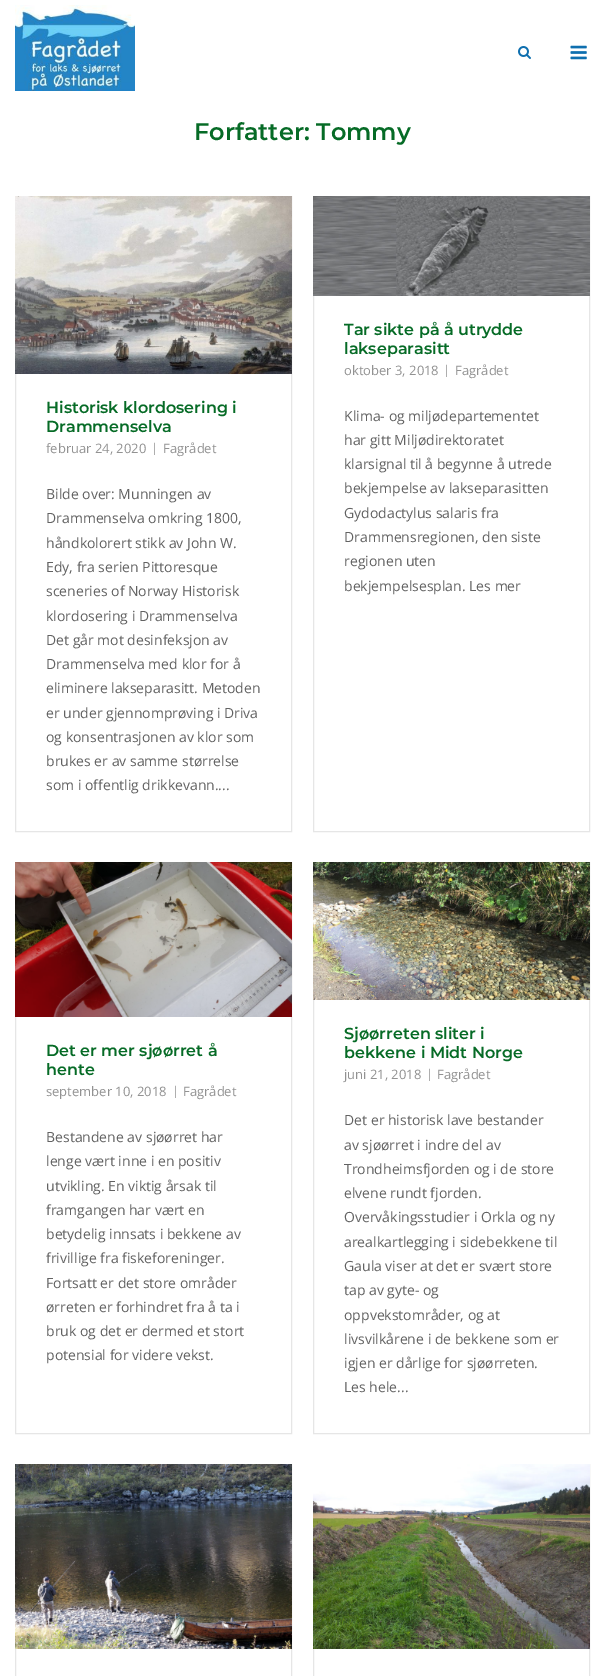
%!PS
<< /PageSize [605 1676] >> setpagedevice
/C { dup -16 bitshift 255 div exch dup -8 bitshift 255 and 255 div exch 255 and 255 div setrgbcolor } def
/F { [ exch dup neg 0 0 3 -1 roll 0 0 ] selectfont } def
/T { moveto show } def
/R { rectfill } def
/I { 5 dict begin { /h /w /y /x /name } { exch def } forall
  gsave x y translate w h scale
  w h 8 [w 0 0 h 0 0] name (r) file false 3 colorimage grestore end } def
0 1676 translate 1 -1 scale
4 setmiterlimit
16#FFFFFF C
0 0 605 1676 R
(1.rgb) 15 5 120 86 I
(2.rgb) 518 46 13 13 I
(3.rgb) 570 45 17 15 I
/Montserrat-SemiBold 24 F
16#066B26 C
(Forfatter: Tommy) 194 140 T
16#E6E6E6 C
15.5 196.5 276 635 rectstroke
(4.rgb) 15 196 277 178 I
/Montserrat-SemiBold 16 F
16#066B26 C
(Historisk klordosering i) 46 413 T
(Drammenselva) 46 432 T
/OpenSans-Regular 13 F
16#929292 C
(februar 24, 2020) 46 453 T
/OpenSans-Regular 12 F
(|) 151 452 T
/OpenSans-Regular 13 F
(Fagrådet) 163 453 T
/OpenSans-Regular 14 F
16#626262 C
(Bilde over: Munningen av) 46 499 T
(Drammenselva omkring 1800,) 46 523 T
(håndkolorert stikk av John W.) 46 548 T
(Edy, fra serien Pittoresque) 46 572 T
(sceneries of Norway Historisk) 46 596 T
(klordosering i Drammenselva) 46 621 T
(Det går mot desinfeksjon av) 46 645 T
(Drammenselva med klor for å) 46 669 T
(eliminere lakseparasitt. Metoden) 46 693 T
(er under gjennomprøving i Driva) 46 718 T
(og konsentrasjonen av klor som) 46 742 T
(brukes er av samme størrelse) 46 766 T
(som i offentlig drikkevann....) 46 790 T
16#E6E6E6 C
313.5 196.5 276 635 rectstroke
(5.rgb) 313 196 277 100 I
/Montserrat-SemiBold 16 F
16#066B26 C
(Tar sikte på å utrydde) 344 335 T
(lakseparasitt) 344 354 T
/OpenSans-Regular 13 F
16#929292 C
(oktober 3, 2018) 344 375 T
/OpenSans-Regular 12 F
(|) 443 374 T
/OpenSans-Regular 13 F
(Fagrådet) 455 375 T
/OpenSans-Regular 14 F
16#626262 C
(Klima- og miljødepartementet) 344 421 T
(har gitt Miljødirektoratet) 344 445 T
(klarsignal til å begynne å utrede) 344 469 T
(bekjempelse av lakseparasitten) 344 493 T
(Gydodactylus salaris fra) 344 518 T
(Drammensregionen, den siste) 344 542 T
(regionen uten) 344 566 T
(bekjempelsesplan. Les mer) 344 591 T
16#E6E6E6 C
15.5 862.5 276 571 rectstroke
(6.rgb) 15 862 277 155 I
/Montserrat-SemiBold 16 F
16#066B26 C
(Det er mer sjøørret å) 46 1056 T
(hente) 46 1075 T
/OpenSans-Regular 13 F
16#929292 C
(september 10, 2018) 46 1096 T
/OpenSans-Regular 12 F
(|) 172 1095 T
/OpenSans-Regular 13 F
(Fagrådet) 183 1096 T
/OpenSans-Regular 14 F
16#626262 C
(Bestandene av sjøørret har) 46 1142 T
(lenge vært inne i en positiv) 46 1166 T
(utvikling. En viktig årsak til) 46 1191 T
(framgangen har vært en) 46 1215 T
(betydelig innsats i bekkene av) 46 1239 T
(frivillige fra fiskeforeninger.) 46 1263 T
(Fortsatt er det store områder) 46 1288 T
(ørreten er forhindret fra å ta i) 46 1312 T
(bruk og det er dermed et stort) 46 1336 T
(potensial for videre vekst.) 46 1360 T
16#E6E6E6 C
313.5 862.5 276 571 rectstroke
(7.rgb) 313 862 277 138 I
/Montserrat-SemiBold 16 F
16#066B26 C
(Sjøørreten sliter i) 344 1039 T
(bekkene i Midt Norge) 344 1058 T
/OpenSans-Regular 13 F
16#929292 C
(juni 21, 2018) 344 1079 T
/OpenSans-Regular 12 F
(|) 426 1078 T
/OpenSans-Regular 13 F
(Fagrådet) 437 1079 T
/OpenSans-Regular 14 F
16#626262 C
(Det er historisk lave bestander) 344 1125 T
(av sjøørret i indre del av) 344 1150 T
(Trondheimsfjorden og i de store) 344 1174 T
(elvene rundt fjorden.) 344 1198 T
(Overvåkingsstudier i Orkla og ny) 344 1222 T
(arealkartlegging i sidebekkene til) 344 1247 T
(Gaula viser at det er svært store) 344 1271 T
(tap av gyte- og) 344 1295 T
(oppvekstområder, og at) 344 1320 T
(livsvilkårene i de bekkene som er) 344 1344 T
(igjen er dårlige for sjøørreten.) 344 1368 T
(Les hele...) 344 1392 T
16#E6E6E6 C
15.5 1464.5 276 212 rectstroke
(8.rgb) 15 1464 277 185 I
313.5 1464.5 276 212 rectstroke
(9.rgb) 313 1464 277 185 I
showpage
